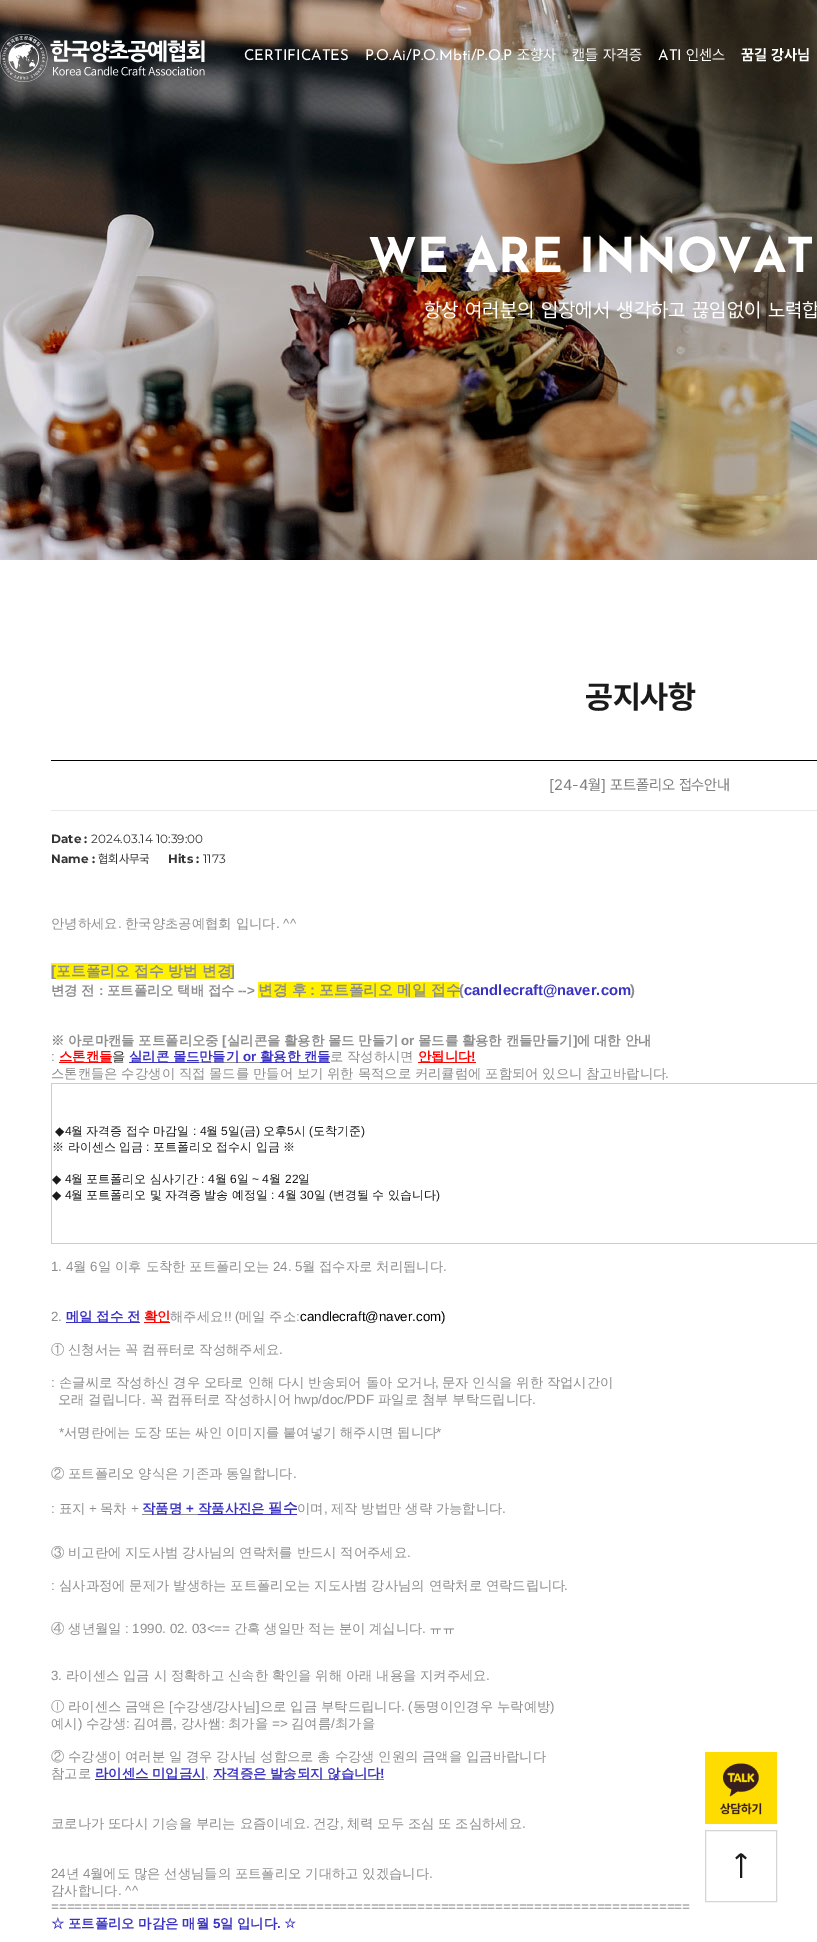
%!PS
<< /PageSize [817 1942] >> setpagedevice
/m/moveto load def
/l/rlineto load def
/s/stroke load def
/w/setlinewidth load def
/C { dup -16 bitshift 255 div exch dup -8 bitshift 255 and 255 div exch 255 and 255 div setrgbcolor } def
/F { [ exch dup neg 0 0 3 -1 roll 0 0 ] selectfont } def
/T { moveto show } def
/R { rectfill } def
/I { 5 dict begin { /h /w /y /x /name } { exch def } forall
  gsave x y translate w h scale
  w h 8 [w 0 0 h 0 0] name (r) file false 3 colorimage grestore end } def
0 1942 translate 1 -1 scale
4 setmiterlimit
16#FFFFFF C
0 0 817 1942 R
(2.rgb) 0 0 817 560 I
(1.rgb) 0 34 205 48 I
/JosefinSans-Regular 15 F
(CERTIFICATES) 244 60 T
(P.O.Ai/P.O.Mbti/P.O.P) 365 60 T
/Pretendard-Regular 15 F
(조향사) 517 60 T
572 60 m 1 0 32 (캔들 자격증) widthshow
/JosefinSans-Regular 15 F
(ATI) 658 60 T
/Pretendard-Regular 15 F
(인센스) 686 60 T
/Pretendard-Bold 15 F
741 60 m 1 0 32 (꿈길 강사님) widthshow
/JosefinSans-Bold 48 F
(WE ARE INNOVAT) 368 272 T
/Pretendard-Regular 20 F
424 317 m 1.5 0 32 (항상 여러분의 입장에서 생각하고 끊임없이 노력합) widthshow
/Pretendard-Bold 32 F
16#1A1A1A C
(공지사항) 585 708 T
16#000000 C
51 760 766 1 R
16#E9E9E9 C
51 810 766 1 R
/Pretendard-Regular 15 F
16#7F7F7F C
([24-4월] 포트폴리오 접수안내) 549 790 T
/Montserrat-Bold 12 F
16#343434 C
(Date :) 51 843 T
/Montserrat-Regular 12 F
(2024.03.14 10:39:00) 91 843 T
/Montserrat-Bold 12 F
(Name :) 51 863 T
/Pretendard-Regular 12 F
(협회사무국) 98 863 T
/Montserrat-Bold 12 F
(Hits :) 168 863 T
/Montserrat-Regular 12 F
(1173) 203 863 T
/WenQuanYiZenHei-Medium 13.35 F
16#8D8D8D C
(안녕하세요) 51 928 T
/LiberationSans-Regular 13.35 F
(.) 118 928 T
/WenQuanYiZenHei-Medium 13.35 F
125 928 m -.25 0 32 (한국양초공예협회 입니다) widthshow
/LiberationSans-Regular 13.35 F
(. ^^) 276 928 T
16#FFEF00 C
51 963 183 16 R
/LiberationSans-Bold 14.75 F
16#8D8D8D C
([) 51 976 T
/WenQuanYiZenHei-Bold 14.75 F
(포트폴리오 접수 방법 변경) 56 976 T
/LiberationSans-Bold 14.75 F
(]) 230 976 T
/WenQuanYiZenHei-Bold 13.35 F
51 995 m -.25 0 32 (변경 전) widthshow
/LiberationSans-Bold 13.35 F
(:) 99 995 T
/WenQuanYiZenHei-Bold 13.35 F
107 995 m -.25 0 32 (포트폴리오 택배 접수) widthshow
/LiberationSans-Bold 13.35 F
(-->) 238 995 T
16#FFEF00 C
258 982 201 16 R
/WenQuanYiZenHei-Bold 14.75 F
16#8D8D8D C
(변경 후) 258 995 T
/LiberationSans-Bold 14.75 F
(:) 310 995 T
/WenQuanYiZenHei-Bold 14.75 F
(포트폴리오 메일 접수) 319 995 T
/LiberationSans-Bold 14.75 F
(\() 459 995 T
16#3A32C3 C
(candlecraft@naver.com) 464 995 T
16#8D8D8D C
(\)) 630 995 T
/WenQuanYiZenHei-Bold 13.35 F
(※) 51 1045 T
68 1045 m -.25 0 32 (아로마캔들 포트폴리오중) widthshow
/LiberationSans-Bold 13.35 F
([) 222 1045 T
/WenQuanYiZenHei-Bold 13.35 F
227 1045 m -.25 0 32 (실리콘을 활용한 몰드 만들기) widthshow
/LiberationSans-Bold 13.35 F
(or) 401 1045 T
/WenQuanYiZenHei-Bold 13.35 F
418 1045 m -.25 0 32 (몰드를 활용한 캔들만들기) widthshow
/LiberationSans-Bold 13.35 F
(]) 573 1045 T
/WenQuanYiZenHei-Bold 13.35 F
577 1045 m -.25 0 32 (에 대한 안내) widthshow
/LiberationSans-Regular 13.35 F
(:) 51 1061 T
16#FF0000 C
59 1062 53 1 R
/WenQuanYiZenHei-Bold 13.35 F
(스톤캔들) 59 1061 T
/WenQuanYiZenHei-Medium 13.35 F
16#252525 C
(을) 112 1061 T
16#3A32C3 C
129 1062 70 1 R
/WenQuanYiZenHei-Bold 13.35 F
129 1061 m -.25 0 32 (실리콘 몰드) widthshow
16#8D8D8D C
199 1062 61 1 R
16#3A32C3 C
(만들기) 199 1061 T
/LiberationSans-Bold 13.35 F
(or) 243 1061 T
260 1062 70 1 R
/WenQuanYiZenHei-Bold 13.35 F
260 1061 m -.25 0 32 (활용한 캔들) widthshow
/WenQuanYiZenHei-Medium 13.35 F
16#8D8D8D C
330 1061 m -.25 0 32 (로 작성하시면) widthshow
16#FF0000 C
418 1062 58 1 R
/WenQuanYiZenHei-Bold 13.35 F
(안됩니다) 418 1061 T
/LiberationSans-Bold 13.35 F
(!) 471 1061 T
/WenQuanYiZenHei-Medium 13.35 F
16#8D8D8D C
51 1078 m -.25 0 32 (스톤캔들은 수강생이 직접 몰드를 만들어 보기 위한 목적으로 커리큘럼에 포함되어 있으니 참고바랍니다) widthshow
/LiberationSans-Regular 13.35 F
(.) 665 1078 T
16#CCCCCC C
51 1083 766 1 R
51 1243 766 1 R
51 1083 1 161 R
/DejaVuSans-Regular 12 F
16#1A1A1A C
(◆) 55 1135 T
/LiberationSans-Regular 12 F
(4) 65 1135 T
/WenQuanYiZenHei-Medium 12 F
71 1135 m -.25 0 32 (월 자격증 접수 마감일) widthshow
/LiberationSans-Regular 12 F
(: 4) 193 1135 T
/WenQuanYiZenHei-Medium 12 F
(월) 206 1135 T
/LiberationSans-Regular 12 F
(5) 221 1135 T
/WenQuanYiZenHei-Medium 12 F
(일) 228 1135 T
/LiberationSans-Regular 12 F
(\() 240 1135 T
/WenQuanYiZenHei-Medium 12 F
(금) 244 1135 T
/LiberationSans-Regular 12 F
(\)) 256 1135 T
/WenQuanYiZenHei-Medium 12 F
(오후) 263 1135 T
/LiberationSans-Regular 12 F
(5) 287 1135 T
/WenQuanYiZenHei-Medium 12 F
(시) 294 1135 T
/LiberationSans-Regular 12 F
(\() 309 1135 T
/WenQuanYiZenHei-Medium 12 F
(도착기준) 313 1135 T
/LiberationSans-Regular 12 F
(\)) 361 1135 T
/WenQuanYiZenHei-Medium 12 F
(※) 52 1151 T
68 1151 m -.25 0 32 (라이센스 입금) widthshow
/LiberationSans-Regular 12 F
(:) 146 1151 T
/WenQuanYiZenHei-Medium 12 F
153 1151 m -.25 0 32 (포트폴리오 접수시 입금) widthshow
(※) 283 1151 T
/DejaVuSans-Regular 12 F
(◆) 52 1183 T
/LiberationSans-Regular 12 F
(4) 65 1183 T
/WenQuanYiZenHei-Medium 12 F
71 1183 m -.25 0 32 (월 포트폴리오 심사기간) widthshow
/LiberationSans-Regular 12 F
(: 4) 201 1183 T
/WenQuanYiZenHei-Medium 12 F
(월) 215 1183 T
/LiberationSans-Regular 12 F
(6) 230 1183 T
/WenQuanYiZenHei-Medium 12 F
(일) 237 1183 T
/LiberationSans-Regular 12 F
(~ 4) 252 1183 T
/WenQuanYiZenHei-Medium 12 F
(월) 269 1183 T
/LiberationSans-Regular 12 F
(22) 285 1183 T
/WenQuanYiZenHei-Medium 12 F
(일) 298 1183 T
/DejaVuSans-Regular 12 F
(◆) 52 1199 T
/LiberationSans-Regular 12 F
(4) 65 1199 T
/WenQuanYiZenHei-Medium 12 F
71 1199 m -.25 0 32 (월 포트폴리오 및 자격증 발송 예정일) widthshow
/LiberationSans-Regular 12 F
(: 4) 271 1199 T
/WenQuanYiZenHei-Medium 12 F
(월) 285 1199 T
/LiberationSans-Regular 12 F
(30) 300 1199 T
/WenQuanYiZenHei-Medium 12 F
(일) 314 1199 T
/LiberationSans-Regular 12 F
(\() 329 1199 T
/WenQuanYiZenHei-Medium 12 F
333 1199 m -.25 0 32 (변경될 수 있습니다) widthshow
/LiberationSans-Regular 12 F
(\)) 436 1199 T
/LiberationSans-Regular 13.35 F
16#8D8D8D C
(1. 4) 51 1271 T
/WenQuanYiZenHei-Medium 13.35 F
(월) 73 1271 T
/LiberationSans-Regular 13.35 F
(6) 90 1271 T
/WenQuanYiZenHei-Medium 13.35 F
98 1271 m -.25 0 32 (일 이후 도착한 포트폴리오는) widthshow
/LiberationSans-Regular 13.35 F
(24. 5) 273 1271 T
/WenQuanYiZenHei-Medium 13.35 F
302 1271 m -.25 0 32 (월 접수자로 처리됩니다) widthshow
/LiberationSans-Regular 13.35 F
(.) 443 1271 T
(2.) 51 1321 T
16#3A32C3 C
66 1322 74 1 R
/WenQuanYiZenHei-Bold 13.35 F
(메일) 66 1321 T
(접) 96 1321 T
110 1321 m -.25 0 32 (수 전) widthshow
16#FF0000 C
144 1322 26 1 R
(확인) 144 1321 T
/WenQuanYiZenHei-Medium 13.35 F
16#8D8D8D C
(해주세요) 170 1321 T
/LiberationSans-Regular 13.35 F
(!! \() 224 1321 T
/WenQuanYiZenHei-Medium 13.35 F
239 1321 m -.25 0 32 (메일 주소) widthshow
/LiberationSans-Regular 13.35 F
(:) 296 1321 T
16#000000 C
(candlecraft@naver.com\)) 300 1321 T
/WenQuanYiZenHei-Medium 13.35 F
16#8D8D8D C
(①) 51 1354 T
68 1354 m -.25 0 32 (신청서는 꼭 컴퓨터로 작성해주세요) widthshow
/LiberationSans-Regular 13.35 F
(.) 279 1354 T
(:) 51 1387 T
/WenQuanYiZenHei-Medium 13.35 F
59 1387 m -.25 0 32 (손글씨로 작성하신 경우 오타로 인해 다시 반송되어 돌아 오거나) widthshow
/LiberationSans-Regular 13.35 F
(,) 435 1387 T
/WenQuanYiZenHei-Medium 13.35 F
442 1387 m -.25 0 32 (문자 인식을 위한 작업시간이) widthshow
58 1404 m -.25 0 32 (오래 걸립니다) widthshow
/LiberationSans-Regular 13.35 F
(.) 142 1404 T
/WenQuanYiZenHei-Medium 13.35 F
150 1404 m -.25 0 32 (꼭 컴퓨터로 작성하시어) widthshow
/LiberationSans-Regular 13.35 F
(hwp/doc/PDF) 294 1404 T
/WenQuanYiZenHei-Medium 13.35 F
378 1404 m -.25 0 32 (파일로 첨부 부탁드립니다) widthshow
/LiberationSans-Regular 13.35 F
(.) 532 1404 T
(*) 59 1437 T
/WenQuanYiZenHei-Medium 13.35 F
64 1437 m -.25 0 32 (서명란에는 도장 또는 싸인 이미지를 붙여넣기 해주시면 됩니다) widthshow
/LiberationSans-Regular 13.35 F
(*) 436 1437 T
/WenQuanYiZenHei-Medium 13.35 F
(②) 51 1478 T
68 1478 m -.25 0 32 (포트폴리오 양식은 기존과 동일합니다) widthshow
/LiberationSans-Regular 13.35 F
(.) 293 1478 T
(:) 51 1513 T
/WenQuanYiZenHei-Medium 13.35 F
(표지) 59 1513 T
/LiberationSans-Regular 13.35 F
(+) 89 1513 T
/WenQuanYiZenHei-Medium 13.35 F
(목차) 100 1513 T
/LiberationSans-Regular 13.35 F
(+) 131 1513 T
142 1514 56 1 R
/WenQuanYiZenHei-Bold 13.35 F
16#3A32C3 C
(작품명) 142 1513 T
/LiberationSans-Bold 13.35 F
(+) 186 1513 T
198 1514 99 1 R
/WenQuanYiZenHei-Bold 13.35 F
(작품사진은) 198 1513 T
/WenQuanYiZenHei-Bold 14.75 F
(필수) 268 1513 T
/WenQuanYiZenHei-Medium 13.35 F
16#8D8D8D C
(이며) 297 1513 T
331 1513 m -.25 0 32 (제작 방법만 생략 가능합니다) widthshow
/LiberationSans-Regular 13.35 F
(,) 324 1513 T
(.) 502 1513 T
/WenQuanYiZenHei-Medium 13.35 F
(③) 51 1557 T
68 1557 m -.25 0 32 (비고란에 지도사범 강사님의 연락처를 반드시 적어주세요) widthshow
/LiberationSans-Regular 13.35 F
(.) 407 1557 T
(:) 51 1590 T
/WenQuanYiZenHei-Medium 13.35 F
59 1590 m -.25 0 32 (심사과정에 문제가 발생하는 포트폴리오는 지도사범 강사님의 연락처로 연락드립니다) widthshow
/LiberationSans-Regular 13.35 F
(.) 564 1590 T
/WenQuanYiZenHei-Medium 13.35 F
(④ 생년월일) 51 1633 T
/LiberationSans-Regular 13.35 F
(: 1990. 02. 03<==) 125 1633 T
/WenQuanYiZenHei-Medium 13.35 F
234 1633 m -.25 0 32 (간혹 생일만 적는 분이 계십니다) widthshow
/LiberationSans-Regular 13.35 F
(.) 422 1633 T
/WenQuanYiZenHei-Medium 13.35 F
(ㅠㅠ) 429 1633 T
/LiberationSans-Regular 13.35 F
(3.) 51 1680 T
/WenQuanYiZenHei-Medium 13.35 F
66 1680 m -.25 0 32 (라이센스 입금 시 정확하고 신속한 확인을 위해 아래 내용을 지켜주세요) widthshow
/LiberationSans-Regular 13.35 F
(.) 486 1680 T
/WenQuanYiZenHei-Medium 13.35 F
(ⓛ) 51 1711 T
68 1711 m -.25 0 32 (라이센스 금액은) widthshow
/LiberationSans-Regular 13.35 F
([) 169 1711 T
/WenQuanYiZenHei-Medium 13.35 F
(수강생) 173 1711 T
/LiberationSans-Regular 13.35 F
(/) 213 1711 T
/WenQuanYiZenHei-Medium 13.35 F
(강사님) 216 1711 T
/LiberationSans-Regular 13.35 F
(]) 256 1711 T
/WenQuanYiZenHei-Medium 13.35 F
260 1711 m -.25 0 32 (으로 입금 부탁드립니다) widthshow
/LiberationSans-Regular 13.35 F
(. \() 401 1711 T
/WenQuanYiZenHei-Medium 13.35 F
413 1711 m -.25 0 32 (동명이인경우 누락예방) widthshow
/LiberationSans-Regular 13.35 F
(\)) 550 1711 T
/WenQuanYiZenHei-Medium 13.35 F
(예시) 51 1728 T
/LiberationSans-Regular 13.35 F
(\)) 78 1728 T
/WenQuanYiZenHei-Medium 13.35 F
(수강생) 86 1728 T
/LiberationSans-Regular 13.35 F
(:) 126 1728 T
/WenQuanYiZenHei-Medium 13.35 F
(김여름) 133 1728 T
(강사쌤) 181 1728 T
/LiberationSans-Regular 13.35 F
(:) 221 1728 T
/WenQuanYiZenHei-Medium 13.35 F
(최가을) 228 1728 T
/LiberationSans-Regular 13.35 F
(=>) 272 1728 T
/WenQuanYiZenHei-Medium 13.35 F
(김여름) 291 1728 T
/LiberationSans-Regular 13.35 F
(/) 331 1728 T
/WenQuanYiZenHei-Medium 13.35 F
(최가을) 335 1728 T
/LiberationSans-Regular 13.35 F
(,) 173 1728 T
/WenQuanYiZenHei-Medium 13.35 F
(②) 51 1761 T
68 1761 m -.25 0 32 (수강생이 여러분 일 경우 강사님 성함으로 총 수강생 인원의 금액을 입금바랍니다) widthshow
(참고로) 51 1778 T
16#3A32C3 C
95 1779 110 1 R
/WenQuanYiZenHei-Bold 13.35 F
95 1778 m -.25 0 32 (라이센스 미입금시) widthshow
/LiberationSans-Regular 13.35 F
16#8D8D8D C
(,) 205 1778 T
213 1779 171 1 R
/WenQuanYiZenHei-Bold 13.35 F
16#3A32C3 C
213 1778 m -.25 0 32 (자격증은 발송되지 않습니다) widthshow
/LiberationSans-Bold 13.35 F
(!) 380 1778 T
/WenQuanYiZenHei-Medium 13.35 F
16#8D8D8D C
51 1828 m -.25 0 32 (코로나가 또다시 기승을 부리는 요즘이네요) widthshow
/LiberationSans-Regular 13.35 F
(.) 306 1828 T
/WenQuanYiZenHei-Medium 13.35 F
(건강) 313 1828 T
/LiberationSans-Regular 13.35 F
(,) 340 1828 T
/WenQuanYiZenHei-Medium 13.35 F
347 1828 m -.25 0 32 (체력 모두 조심 또 조심하세요) widthshow
/LiberationSans-Regular 13.35 F
(.) 522 1828 T
(24) 51 1878 T
/WenQuanYiZenHei-Medium 13.35 F
(년) 66 1878 T
/LiberationSans-Regular 13.35 F
(4) 83 1878 T
/WenQuanYiZenHei-Medium 13.35 F
90 1878 m -.25 0 32 (월에도 많은 선생님들의 포트폴리오 기대하고 있겠습니다) widthshow
/LiberationSans-Regular 13.35 F
(.) 429 1878 T
/WenQuanYiZenHei-Medium 13.35 F
(감사합니다) 51 1895 T
/LiberationSans-Regular 13.35 F
(. ^^) 118 1895 T
(==================================================================================) 51 1911 T
/WenQuanYiZenHei-Bold 13.35 F
16#3A32C3 C
(☆) 51 1928 T
68 1928 m -.25 0 32 (포트폴리오 마감은 매월) widthshow
/LiberationSans-Bold 13.35 F
(5) 213 1928 T
/WenQuanYiZenHei-Bold 13.35 F
220 1928 m -.25 0 32 (일 입니다) widthshow
/LiberationSans-Bold 13.35 F
(.) 277 1928 T
/DejaVuSans-Bold 13.35 F
(☆) 284 1928 T
(3.rgb) 705 1752 72 72 I
16#1A1A1A C
2 w
741 1854 m 0 24 l 741 1854 m 5 4.5 l 741 1854 m -5 4.5 l s
16#D5D5D5 C
1 w
705.5 1830.5 71 71 rectstroke
showpage
